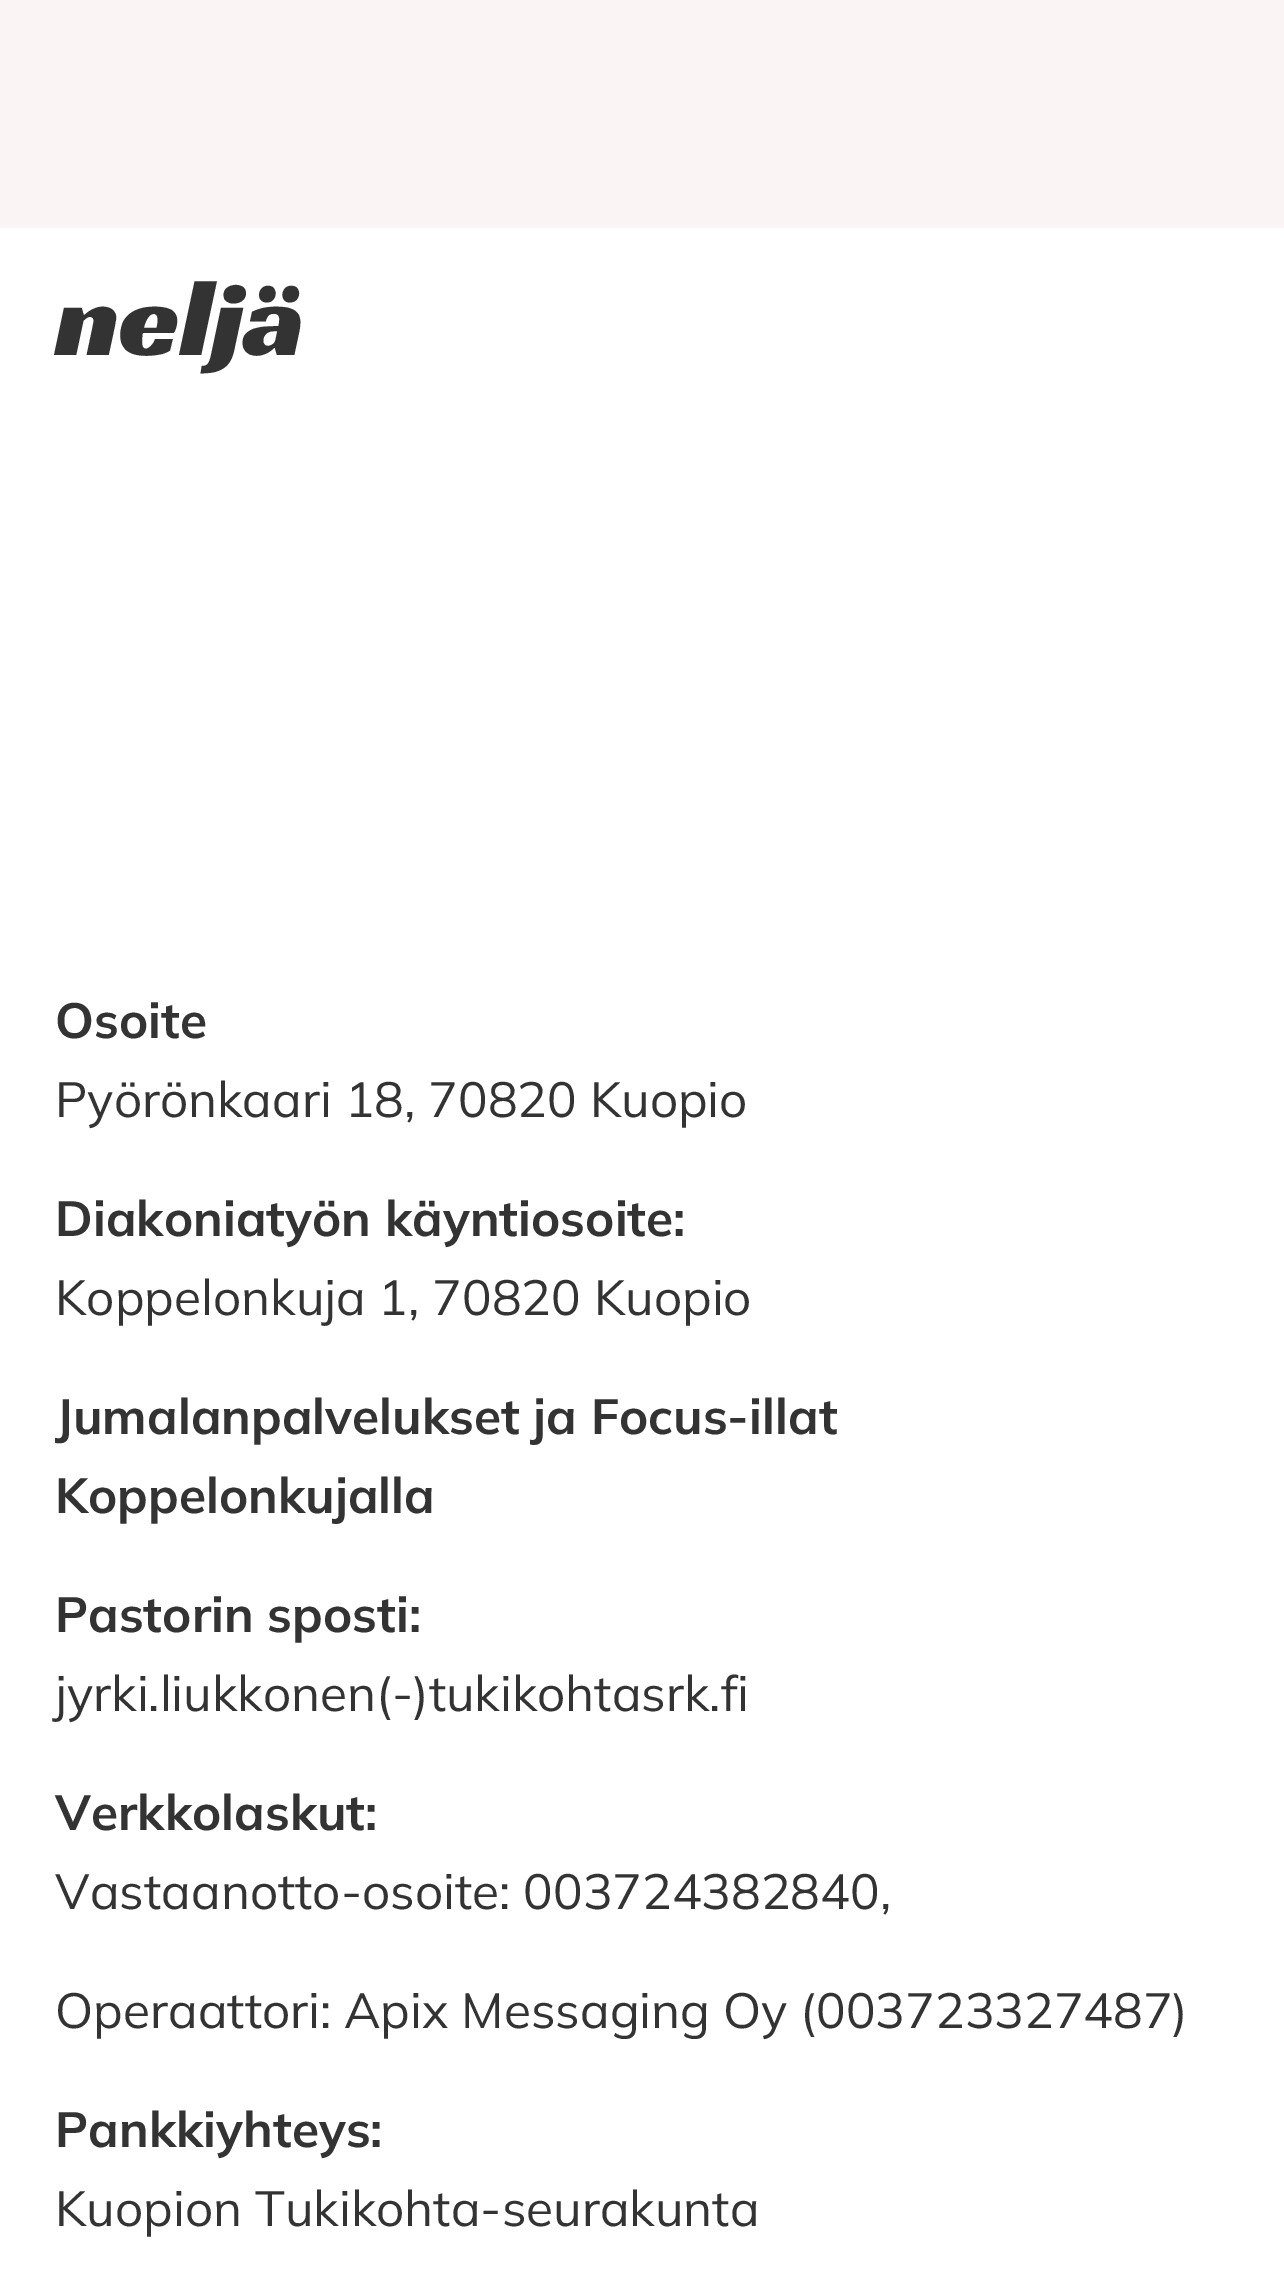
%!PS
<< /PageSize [1284 2285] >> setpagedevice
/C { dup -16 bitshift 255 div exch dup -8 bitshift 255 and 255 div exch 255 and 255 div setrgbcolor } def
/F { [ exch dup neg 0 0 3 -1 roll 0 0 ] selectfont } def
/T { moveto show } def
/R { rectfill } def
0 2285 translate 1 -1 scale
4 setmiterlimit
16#FFFFFF C
0 0 1284 2285 R
16#FAF5F4 C
0 0 1284 228 R
/RacingSansOne-Regular 110 F
16#333333 C
(neljä) 55 355 T
/Mulish-Bold 49.5 F
(Osoite) 55 1038 T
/Mulish-Regular 49.5 F
(Pyörönkaari 18, 70820 Kuopio) 55 1117 T
/Mulish-Bold 49.5 F
(Diakoniatyön käyntiosoite:) 55 1236 T
/Mulish-Regular 49.5 F
(Koppelonkuja 1, 70820 Kuopio) 55 1315 T
/Mulish-Bold 49.5 F
(Jumalanpalvelukset ja Focus-illat) 55 1434 T
(Koppelonkujalla) 55 1513 T
(Pastorin sposti:) 55 1632 T
/Mulish-Regular 49.5 F
(jyrki.liukkonen\(-\)tukikohtasrk.fi) 55 1711 T
/Mulish-Bold 49.5 F
(Verkkolaskut:) 55 1830 T
/Mulish-Regular 49.5 F
(Vastaanotto-osoite: 003724382840,) 55 1909 T
(Operaattori: Apix Messaging Oy \(003723327487\)) 55 2028 T
/Mulish-Bold 49.5 F
(Pankkiyhteys:) 55 2147 T
/Mulish-Regular 49.5 F
(Kuopion Tukikohta-seurakunta) 55 2226 T
showpage
